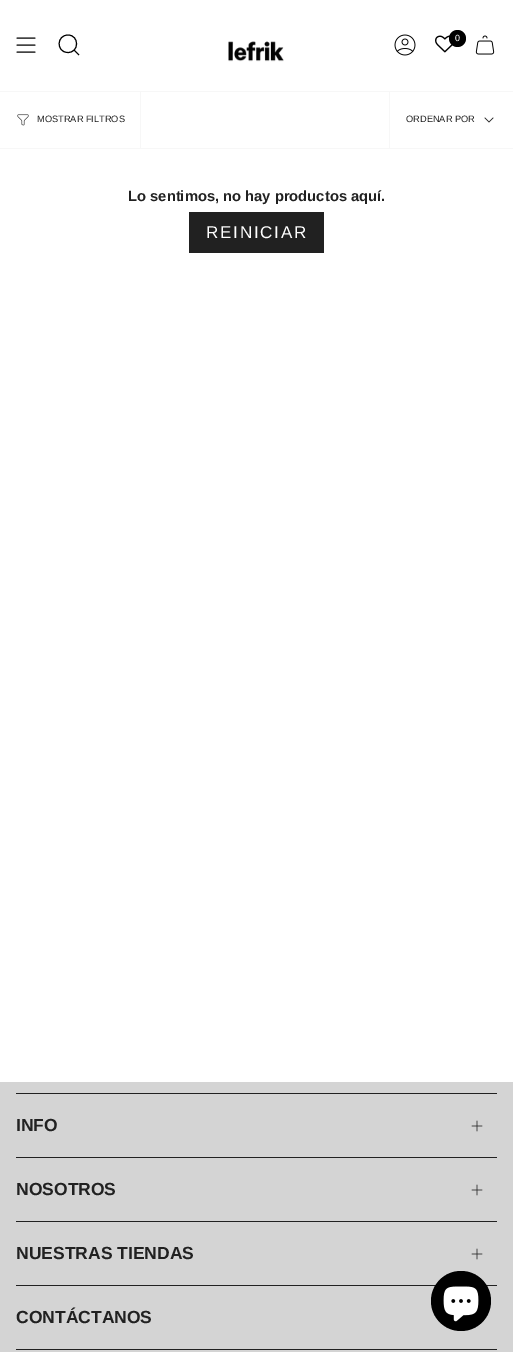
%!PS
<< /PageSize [513 1352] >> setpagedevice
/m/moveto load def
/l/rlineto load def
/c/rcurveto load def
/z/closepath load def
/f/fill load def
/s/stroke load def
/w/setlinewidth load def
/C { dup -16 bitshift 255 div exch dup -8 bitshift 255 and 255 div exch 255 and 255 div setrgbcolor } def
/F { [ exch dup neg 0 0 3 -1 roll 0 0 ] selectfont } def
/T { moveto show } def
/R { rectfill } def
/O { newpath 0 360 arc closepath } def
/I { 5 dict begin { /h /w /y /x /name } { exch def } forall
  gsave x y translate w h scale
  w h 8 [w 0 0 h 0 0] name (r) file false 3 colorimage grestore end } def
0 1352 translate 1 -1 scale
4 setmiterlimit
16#FFFFFF C
0 0 513 1352 R
16#000000 C
1 setlinecap
1 setlinejoin
17 38 m 18 0 l 17 45 m 18 0 l 17 52 m 18 0 l s
0 setlinecap
0 setlinejoin
68 35 m 11.5 0 11.5 18 -.5 17.5 c -11.5 -.5 -11 -17.5 .5 -17.5 c z 74 50 m 5 5 l s
(1.rgb) 394 34 22 22 I
(2.rgb) 435 35 18 18 I
457.5 38.5 8.5 O f
/LiberationSans-Regular 9 F
16#FFFFFF C
(0) 455 41 T
(3.rgb) 475 35 20 20 I
(4.rgb) 228 41 56 21 I
16#F7F7F7 C
0 91 513 1 R
0 148 513 1 R
140 92 1 56 R
(5.rgb) 17 114 12 12 I
/LiberationSans-Regular 9.25 F
16#212121 C
(MOSTRAR FILTROS) 37 122 T
16#F7F7F7 C
389 92 1 56 R
16#212121 C
(ORDENAR POR) 406 122 T
.7 w
1 setlinecap
1 setlinejoin
485 118 m 4 4 l 4 -4 l s
/LiberationSans-Bold 14.75 F
(Lo sentimos, no hay productos aquí.) 128 201 T
189 212 135 41 R
/LiberationSans-Regular 17 F
16#FFFFFF C
206 238 m 1.75 0 (REINICIAR) ashow
16#D4D4D4 C
0 1082 513 270 R
16#212121 C
16 1093 481 1 R
/LiberationSans-Bold 17.5 F
(INFO) 16 1131 T
(6.rgb) 471 1120 12 12 I
16 1157 481 1 R
(NOSOTROS) 16 1195 T
(6.rgb) 471 1184 12 12 I
16 1221 481 1 R
(NUESTRAS TIENDAS) 16 1259 T
(6.rgb) 471 1248 12 12 I
16 1285 481 1 R
16 1349 481 1 R
(CONTÁCTANOS) 16 1323 T
16#000000 C
461 1301 30 O f
(7.rgb) 443 1286 36 36 I
showpage
